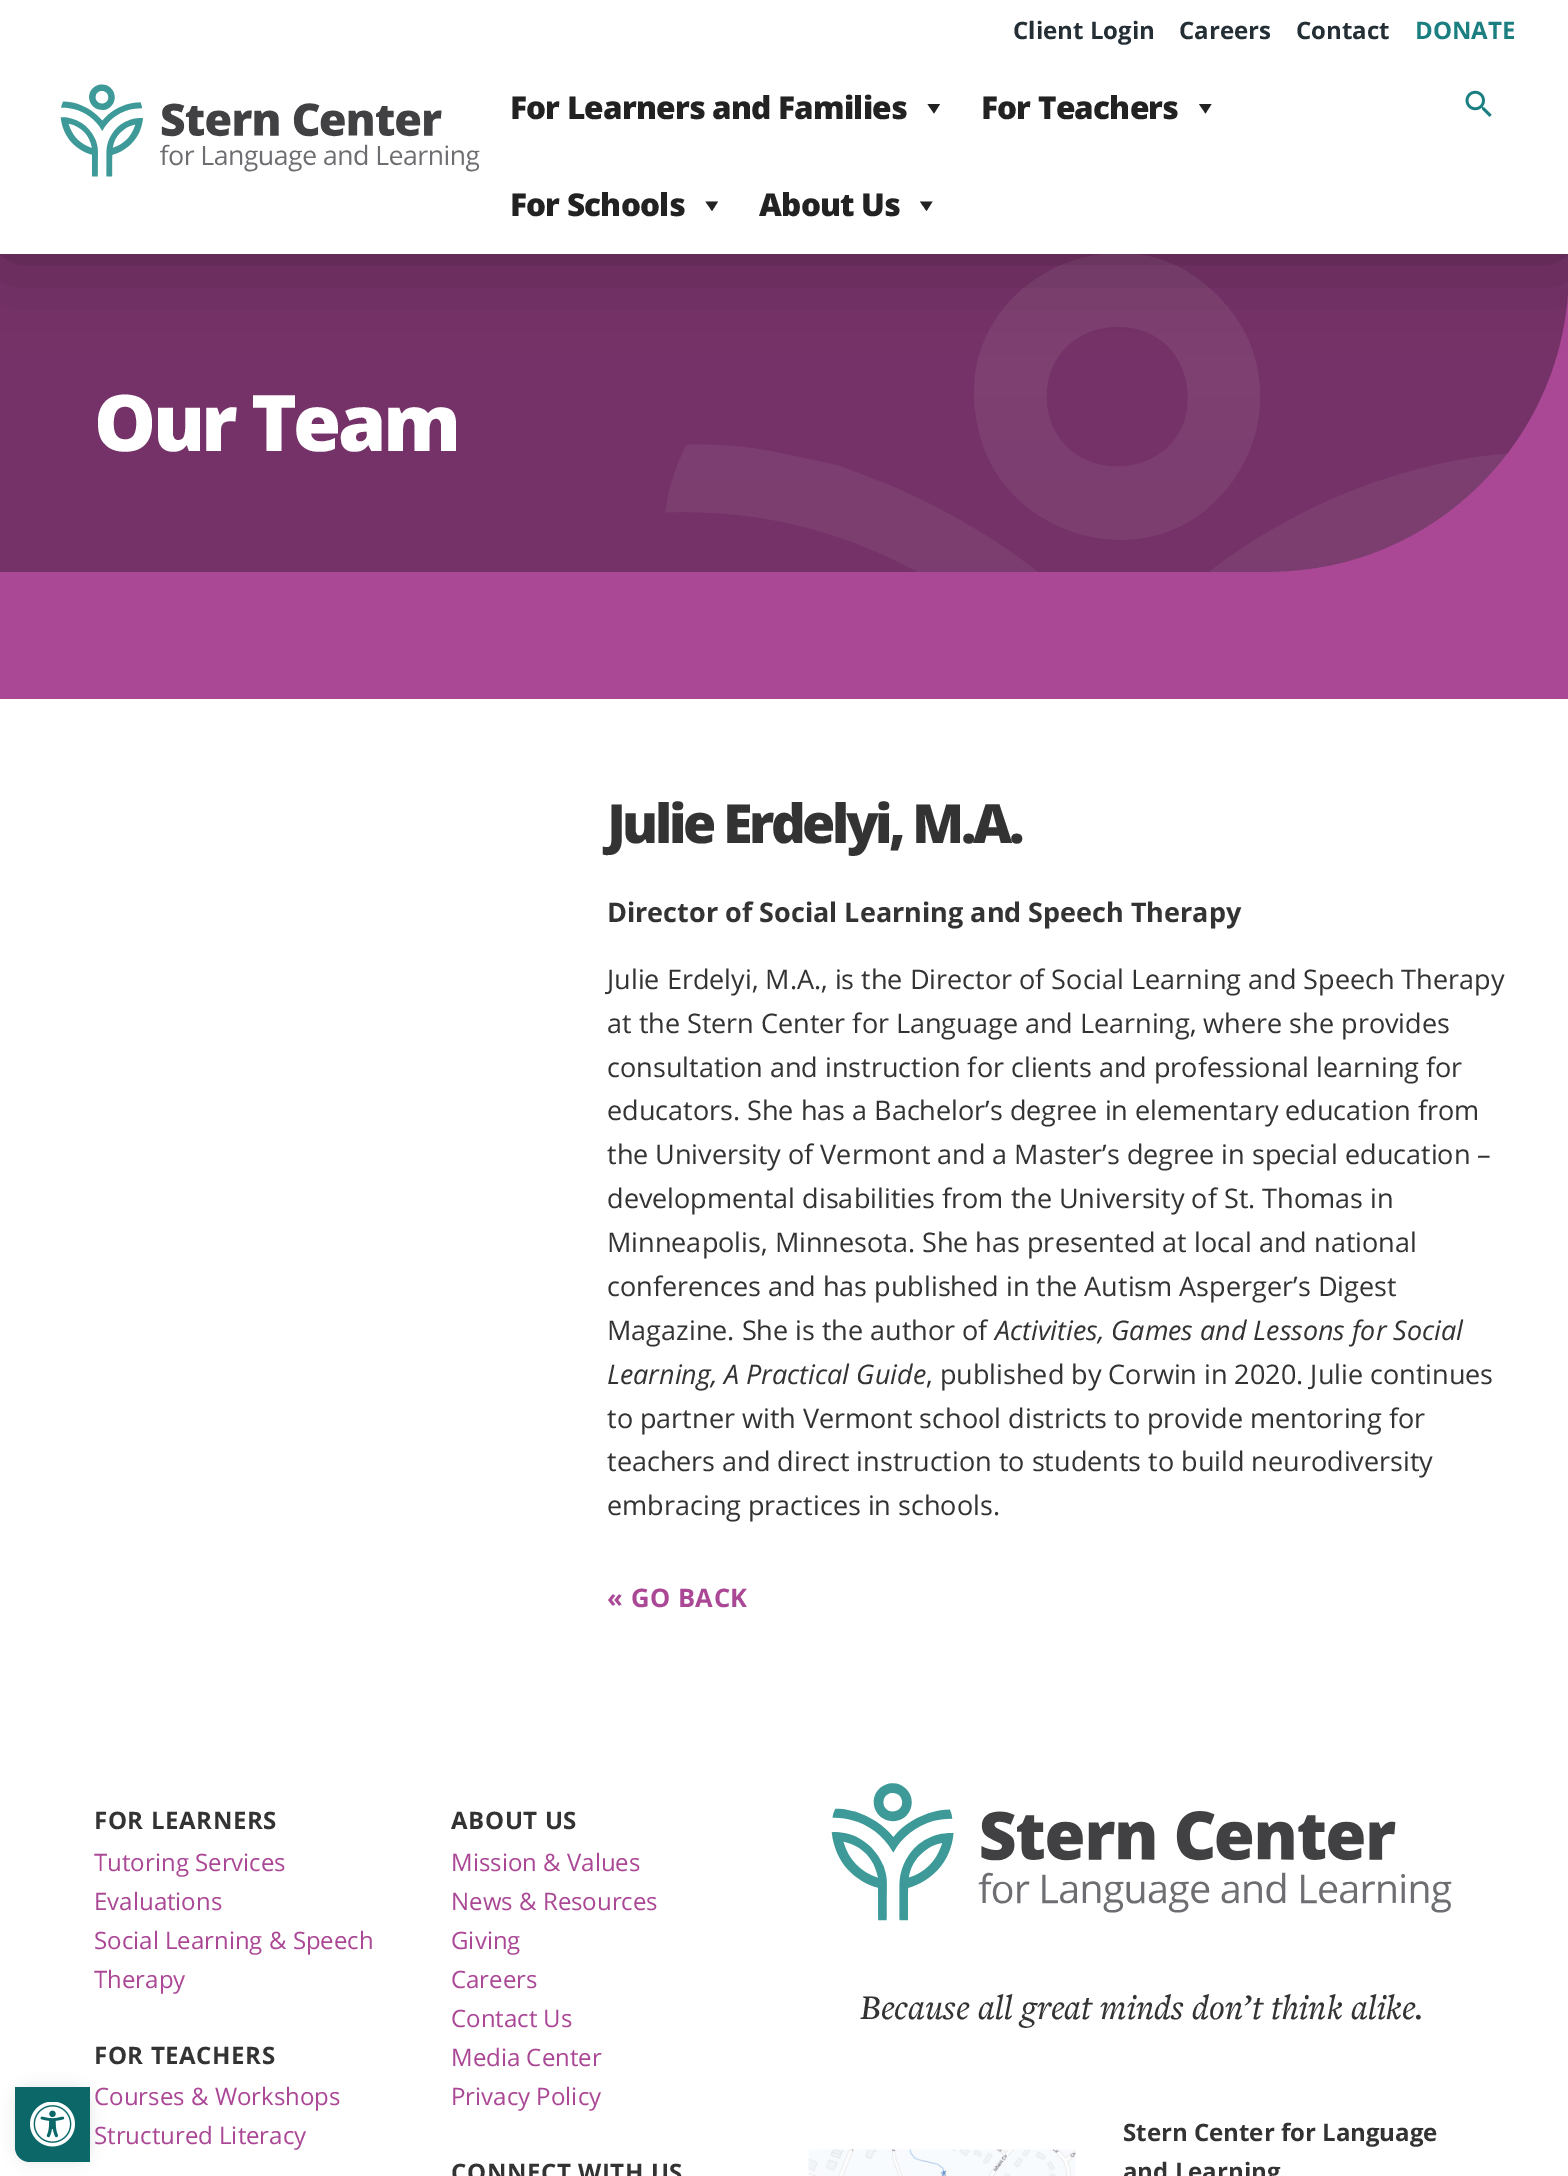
%!PS
<< /PageSize [1568 2176] /PageUsesTransparency true >> setpagedevice
/m/moveto load def
/l/rlineto load def
/c/rcurveto load def
/z/closepath load def
/f/fill load def
/C { dup -16 bitshift 255 div exch dup -8 bitshift 255 and 255 div exch 255 and 255 div setrgbcolor } def
/F { [ exch dup neg 0 0 3 -1 roll 0 0 ] selectfont } def
/T { moveto show } def
/R { rectfill } def
/A { dup .setfillconstantalpha .setstrokeconstantalpha } def
/Q { 5 dict begin { /r /h /w /y /x } { exch def } forall
  x r add y moveto x w add y 2 copy h add r arct x w add y h add x 1 index r arct
  x y h add x y r arct x y 2 copy exch w add exch r arct closepath end } def
/S { 12 dict begin { /a /b /q /h /w /y /x } { exch def } forall gsave /was 0 def
  9 -2 -9 { dup b mul 4 div /e exch def 1 sub .425 mul 2.718 exch exp 1 add a .99 .min exch div /now exch def
    1 1 now sub 1 was sub div sub A /was now def
    w h .min e 2 mul add 0 gt { x e sub y e sub w e 2 mul add h e 2 mul add
      q e add b .6 mul add w h .min 2 div e add .min 0 .max Q fill } if } for grestore end } def
/I { 5 dict begin { /h /w /y /x /name } { exch def } forall
  gsave x y translate w h scale
  w h 8 [w 0 0 h 0 0] name (r) file false 3 colorimage grestore end } def
0 .pushpdf14devicefilter
0 2176 translate 1 -1 scale
4 setmiterlimit
16#FFFFFF C
0 0 1568 2176 R
16#000000 C
15 2087 75 75 15 7.5 .1 S
16#0C6768 C
15 2087 m 75 0 l 0 75 l -60 0 l -8.5 0 -15 -6.5 -15 -15 c z f
(1.rgb) 30 2102 45 45 I
16#753268 C
0 254 1568 318 R
(4.rgb) 665 254 844 318 I
16#AB4896 C
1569 272 m 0 300 l -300 0 l 166 0 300 -135 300 -300 c z f
16#000000 C
0 0 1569 254 0 45 .3 S
16#FFFFFF C
0 0 1568 254 R
(2.rgb) 60 84 420 93 I
/OpenSans-Bold 24 F
16#242E35 C
(Client Login) 1013 39 T
(Careers) 1179 39 T
(Contact) 1296 39 T
16#1B7F81 C
(DONATE) 1415 39 T
/OpenSans-ExtraBold 31.5 F
16#222222 C
510 119 m -.8 0 (For Learners and Families) ashow
940 104 m -6 9.5 l -6.5 -9.5 l z f
981 119 m -.8 0 (For Teachers) ashow
1211.5 104 m -6 9.5 l -6.5 -9.5 l z f
(3.rgb) 1465 90 27 27 I
510 216 m -.8 0 (For Schools) ashow
718 201.5 m -6 9.5 l -6.5 -9.5 l z f
759 216 m -.8 0 (About Us) ashow
932.5 201.5 m -6 9.5 l -6.5 -9.5 l z f
/OpenSans-ExtraBold 78 F
16#FFFFFF C
94 451 m -3.6 0 (Our Team) ashow
16#AB4896 C
0 572 1568 127 R
/OpenSans-ExtraBold 54 F
16#333333 C
607 843 m -3.6 0 (Julie Erdelyi, M.A.) ashow
/OpenSans-Bold 27 F
(Director of Social Learning and Speech Therapy) 607 922 T
/OpenSans-Regular 27 F
(Julie Erdelyi, M.A., is the Director of Social Learning and Speech Therapy) 607 989 T
(at the Stern Center for Language and Learning, where she provides) 607 1033 T
(consultation and instruction for clients and professional learning for) 607 1077 T
(educators. She has a Bachelor’s degree in elementary education from) 607 1120 T
(the University of Vermont and a Master’s degree in special education –) 607 1164 T
(developmental disabilities from the University of St. Thomas in) 607 1208 T
(Minneapolis, Minnesota. She has presented at local and national) 607 1252 T
(conferences and has published in the Autism Asperger’s Digest) 607 1296 T
(Magazine. She is the author of) 607 1340 T
/OpenSans-Italic 27 F
(Activities, Games and Lessons for Social) 995 1340 T
(Learning, A Practical Guide) 607 1384 T
/OpenSans-Regular 27 F
(, published by Corwin in 2020. Julie continues) 926 1384 T
(to partner with Vermont school districts to provide mentoring for) 607 1428 T
(teachers and direct instruction to students to build neurodiversity) 607 1471 T
(embracing practices in schools.) 607 1515 T
/OpenSans-Bold 25.5 F
16#AB4896 C
607 1607 m .6 0 (« GO BACK) ashow
/OpenSans-Bold 24 F
16#333333 C
94 1829 m .6 0 (FOR LEARNERS) ashow
/OpenSans-Regular 24 F
16#AB4896 C
(Tutoring Services) 94 1871 T
(Evaluations) 94 1910 T
(Social Learning & Speech) 94 1949 T
(Therapy) 94 1988 T
/OpenSans-Bold 24 F
16#333333 C
94 2064 m .6 0 (FOR TEACHERS) ashow
/OpenSans-Regular 24 F
16#AB4896 C
(Courses & Workshops) 94 2105 T
(Structured Literacy) 94 2144 T
/OpenSans-Bold 24 F
16#333333 C
451 1829 m .6 0 (ABOUT US) ashow
/OpenSans-Regular 24 F
16#AB4896 C
(Mission & Values) 451 1871 T
(News & Resources) 451 1910 T
(Giving) 451 1949 T
(Careers) 451 1988 T
(Contact Us) 451 2027 T
(Media Center) 451 2066 T
(Privacy Policy) 451 2105 T
/OpenSans-Bold 24 F
16#333333 C
451 2181 m .6 0 (CONNECT WITH US) ashow
(5.rgb) 831 1783 621 138 I
/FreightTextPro-MediumItalic 36 F
(Because all great minds don’t think alike.) 860 2019 T
(6.rgb) 808 2149 268 27 I
/OpenSans-Bold 24 F
(Stern Center for Language) 1123 2141 T
(and Learning) 1123 2180 T
.poppdf14devicefilter showpage
